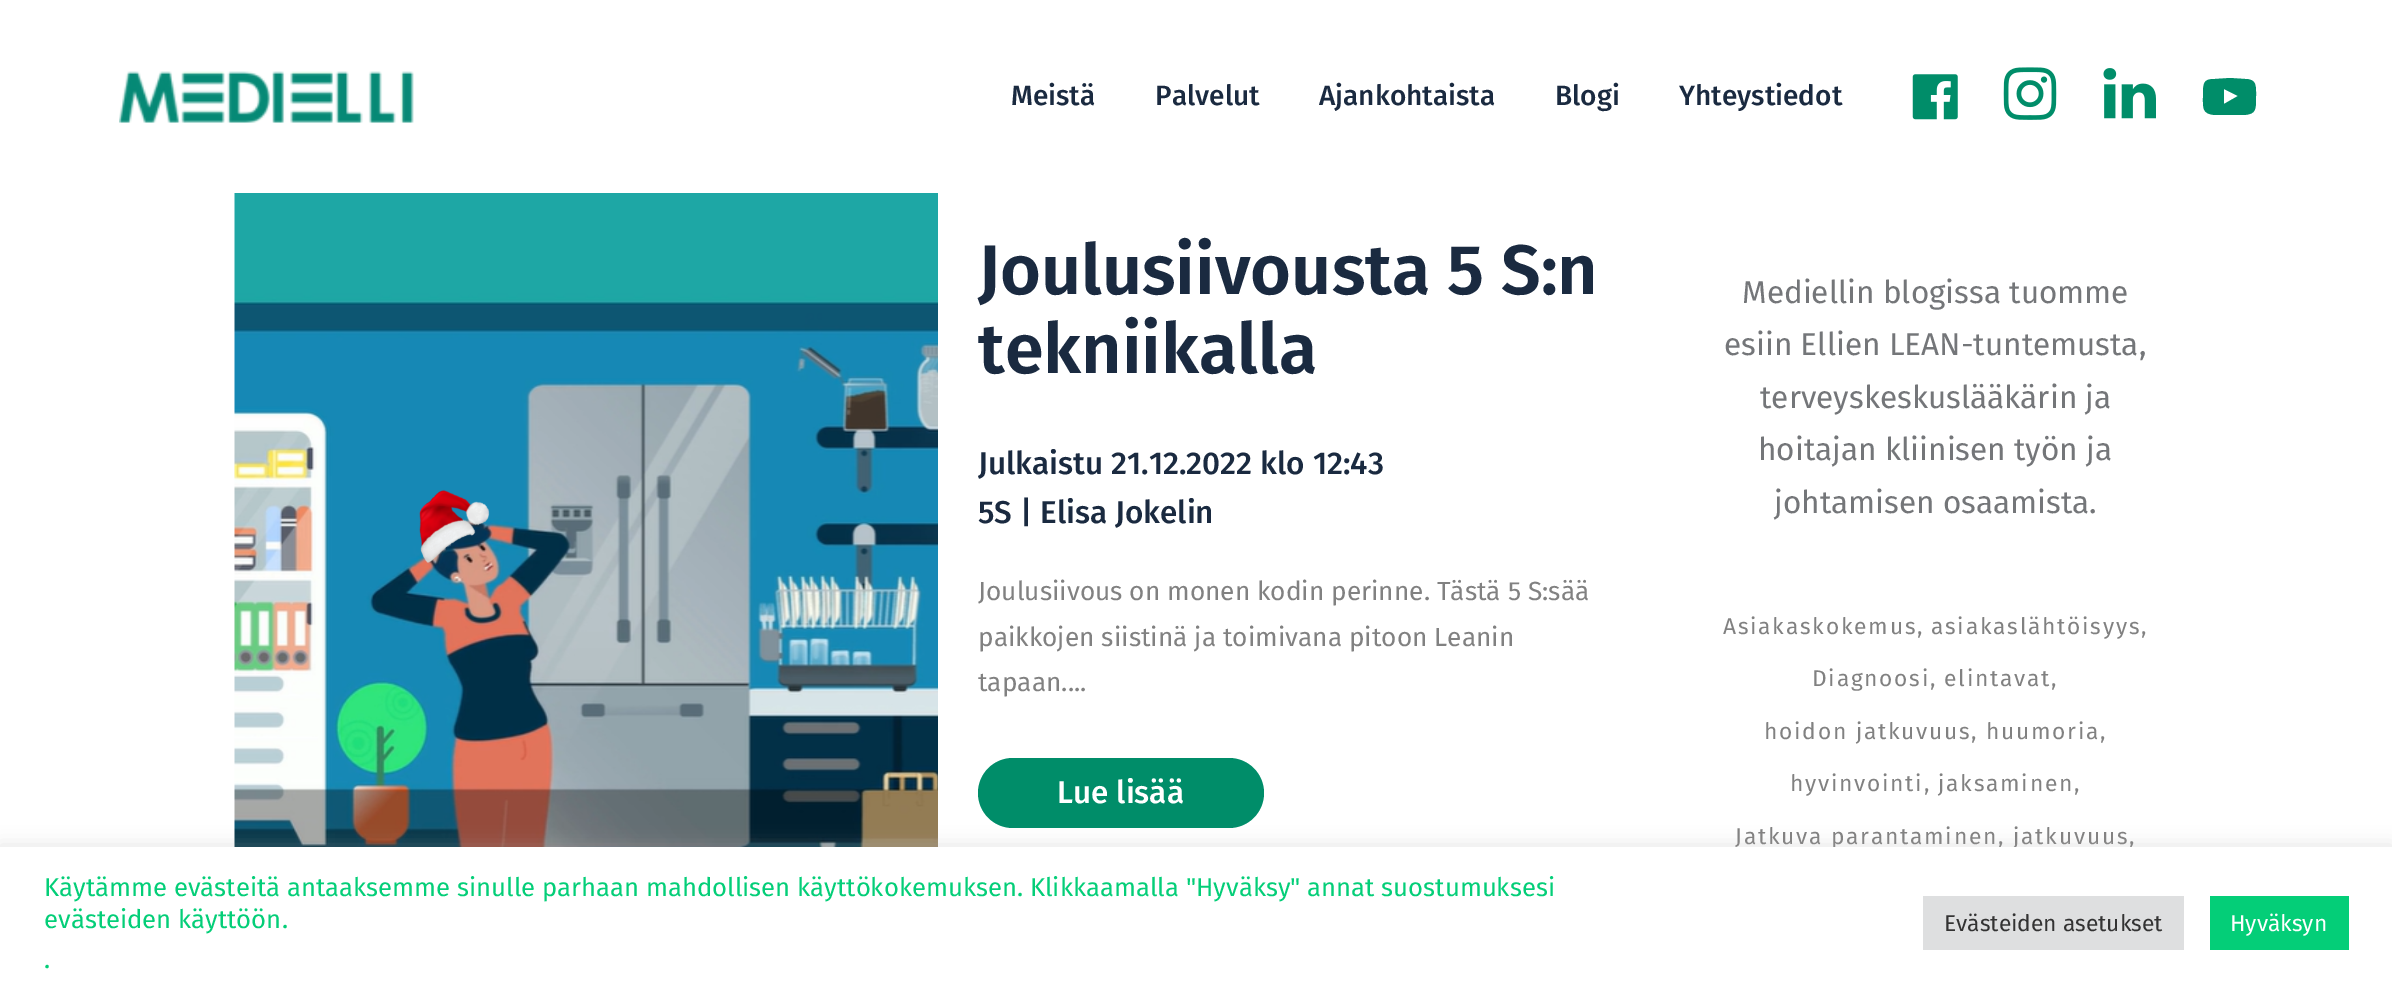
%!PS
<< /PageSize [2392 999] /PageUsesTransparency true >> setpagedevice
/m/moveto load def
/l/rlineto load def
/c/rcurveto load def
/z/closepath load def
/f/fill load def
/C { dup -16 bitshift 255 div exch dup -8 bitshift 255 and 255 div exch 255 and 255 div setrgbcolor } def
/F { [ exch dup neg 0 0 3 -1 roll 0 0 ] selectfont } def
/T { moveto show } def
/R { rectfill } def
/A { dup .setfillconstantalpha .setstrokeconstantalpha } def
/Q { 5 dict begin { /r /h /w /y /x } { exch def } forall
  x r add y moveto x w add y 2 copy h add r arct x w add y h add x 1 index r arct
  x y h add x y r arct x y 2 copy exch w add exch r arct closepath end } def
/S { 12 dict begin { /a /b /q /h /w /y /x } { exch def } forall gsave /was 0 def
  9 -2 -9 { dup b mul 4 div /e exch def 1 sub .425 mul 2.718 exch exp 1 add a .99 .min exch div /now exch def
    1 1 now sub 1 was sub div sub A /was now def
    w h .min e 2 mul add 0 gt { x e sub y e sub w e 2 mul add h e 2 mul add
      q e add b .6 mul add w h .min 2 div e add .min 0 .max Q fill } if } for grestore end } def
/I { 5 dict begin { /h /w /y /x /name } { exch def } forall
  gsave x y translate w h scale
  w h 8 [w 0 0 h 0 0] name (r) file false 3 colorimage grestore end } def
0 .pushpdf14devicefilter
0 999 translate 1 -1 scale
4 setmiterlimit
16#FFFFFF C
0 0 2392 999 R
(1.rgb) 119 71 295 52 I
/FiraSans-Medium 28 F
16#1A2A40 C
(Meistä) 1011 105 T
(Palvelut) 1155 105 T
(Ajankohtaista) 1319 105 T
(Blogi) 1555 105 T
(Yhteystiedot) 1679 105 T
(2.rgb) 1912 74 46 46 I
(3.rgb) 2003 67 54 53 I
(4.rgb) 2103 68 53 51 I
16#008D69 C
2224 104 m 14 -8 l -14 -7 l z 2230 78 m 15 1 l 12 0 11 7 11 18 c 0 13 0 17 -12 18 c -29 0 l -13 -1 -12 -7 -12 -18 c 0 -14 0 -18 12 -18 c z f
(5.rgb) 234 193 704 654 I
/FiraSans-SemiBold 70 F
16#1A2A40 C
(Joulusiivousta 5 S:n) 978 294 T
(tekniikalla) 978 373 T
/FiraSans-Medium 31.5 F
(Julkaistu 21.12.2022 klo 12:43) 978 474 T
(5S | Elisa Jokelin) 978 523 T
/FiraSans-Regular 26.25 F
16#818181 C
(Joulusiivous on monen kodin perinne. Tästä 5 S:sää) 978 600 T
(paikkojen siistinä ja toimivana pitoon Leanin) 978 646 T
(tapaan....) 978 691 T
16#008D69 C
978 758 286 70 35 Q f
/FiraSans-Medium 31.5 F
16#FFFFFF C
(Lue lisää) 1057 803 T
/FiraSans-Regular 31.5 F
16#747679 C
(Mediellin blogissa tuomme) 1742 303 T
(esiin Ellien LEAN-tuntemusta,) 1724 355 T
(terveyskeskuslääkärin ja) 1760 408 T
(hoitajan kliinisen työn ja) 1758 460 T
(johtamisen osaamista.) 1774 513 T
/FiraSans-Regular 22.75 F
16#818181 C
1723 634 m 1.75 0 (Asiakaskokemus,) ashow
1931 634 m 1.75 0 (asiakaslähtöisyys,) ashow
1812 686 m 1.75 0 (Diagnoosi,) ashow
1944 686 m 1.75 0 (elintavat,) ashow
1764 739 m 1.75 0 (hoidon jatkuvuus,) ashow
1986 739 m 1.75 0 (huumoria,) ashow
1790 791 m 1.75 0 (hyvinvointi,) ashow
1938 791 m 1.75 0 (jaksaminen,) ashow
1735 844 m 1.75 0 (Jatkuva parantaminen,) ashow
2013 844 m 1.75 0 (jatkuvuus,) ashow
16#ACABAB C
0 845 2392 153 0 9 .3 S
16#FFFFFF C
0 847 2392 152 R
/FiraSans-Regular 25.67 F
16#04CE78 C
(Käytämme evästeitä antaaksemme sinulle parhaan mahdollisen käyttökokemuksen. Klikkaamalla "Hyväksy" annat suostumuksesi) 44 896 T
(evästeiden käyttöön.) 44 928 T
(.) 44 968 T
16#DEDFE0 C
1923 896 261 54 R
/FiraSans-Regular 22.75 F
16#333333 C
(Evästeiden asetukset) 1944 931 T
16#04CE78 C
2210 896 139 54 R
16#FFFFFF C
(Hyväksyn) 2230 931 T
.poppdf14devicefilter showpage
